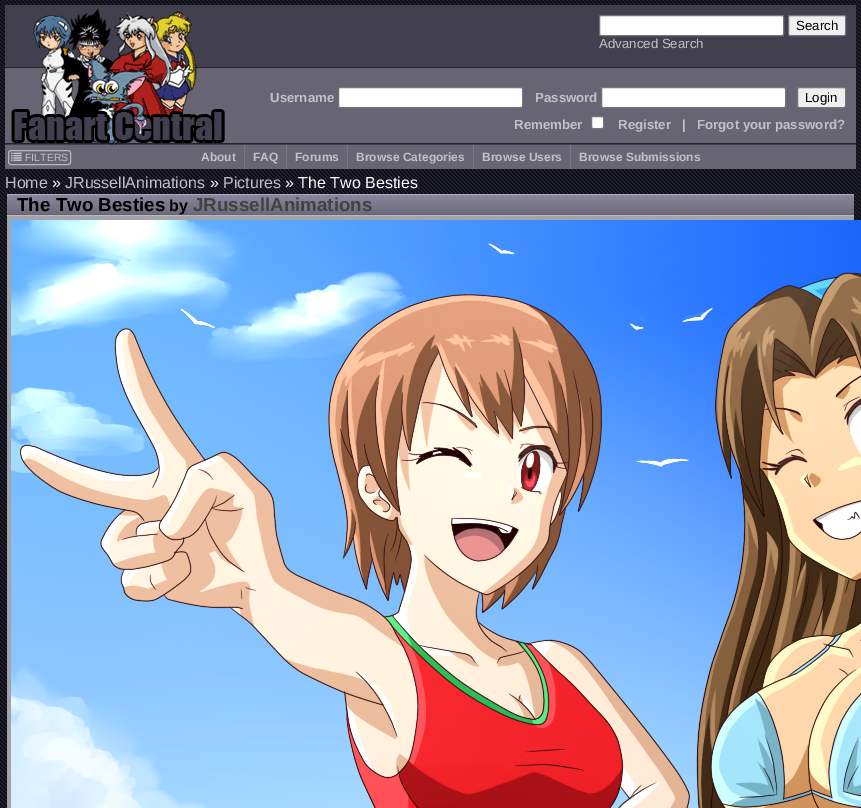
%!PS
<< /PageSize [861 808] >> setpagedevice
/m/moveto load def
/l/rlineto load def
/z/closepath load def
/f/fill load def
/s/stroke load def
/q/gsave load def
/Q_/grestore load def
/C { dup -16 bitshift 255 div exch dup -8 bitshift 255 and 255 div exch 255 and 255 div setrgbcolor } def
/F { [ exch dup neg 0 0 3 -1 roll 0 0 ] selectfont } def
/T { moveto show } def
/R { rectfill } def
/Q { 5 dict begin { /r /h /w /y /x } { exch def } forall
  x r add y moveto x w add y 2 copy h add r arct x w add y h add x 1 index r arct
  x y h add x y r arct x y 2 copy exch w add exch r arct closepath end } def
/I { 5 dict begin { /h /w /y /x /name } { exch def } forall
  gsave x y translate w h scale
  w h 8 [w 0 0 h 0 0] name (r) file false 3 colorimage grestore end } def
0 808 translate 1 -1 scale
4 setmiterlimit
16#FFFFFF C
0 0 861 808 R
(1.rgb) 0 0 861 808 I
(2.rgb) 5 5 851 140 I
(3.rgb) 11 8 214 137 I
599.5 15.5 184 20 1.5 Q q f Q_
16#767676 C
s
16#EFEFEF C
788.5 15.5 57 20 1.5 Q q f Q_
16#767676 C
s
/LiberationSans-Regular 13.25 F
16#000000 C
(Search) 796 30 T
16#C2C1C6 C
(Advanced Search) 599 48 T
/LiberationSans-Bold 13.25 F
(Username) 270 102 T
16#FFFFFF C
338.5 87.5 184 20 1.5 Q q f Q_
16#767676 C
s
16#C2C1C6 C
(Password) 535 102 T
16#FFFFFF C
601.5 87.5 184 20 1.5 Q q f Q_
16#767676 C
s
16#EFEFEF C
797.5 87.5 48 20 1.5 Q q f Q_
16#767676 C
s
/LiberationSans-Regular 13.25 F
16#000000 C
(Login) 805 102 T
/LiberationSans-Bold 13.25 F
16#C2C1C6 C
(Remember) 514 129 T
16#FFFFFF C
591.5 116.5 12 12 1.5 Q q f Q_
16#767676 C
s
16#C2C1C6 C
(Register) 618 129 T
(|) 682 129 T
(Forgot your password?) 697 129 T
16#676573 C
5 145 851 24 R
16#B7B6BB C
8.5 150.5 62 14 2.5 Q s
(4.rgb) 11 152 11 9 I
/LiberationSans-Regular 10.5 F
16#C2C1C6 C
(FILTERS) 25 161 T
16#797782 C
244 145 1 24 R
/LiberationSans-Bold 12 F
16#C2C1C6 C
(About) 201 161 T
16#797782 C
286 145 1 24 R
16#C2C1C6 C
(FAQ) 253 161 T
16#797782 C
347 145 1 24 R
16#C2C1C6 C
(Forums) 295 161 T
16#797782 C
473 145 1 24 R
16#C2C1C6 C
(Browse Categories) 356 161 T
16#797782 C
570 145 1 24 R
16#C2C1C6 C
(Browse Users) 482 161 T
(Browse Submissions) 579 161 T
/LiberationSans-Regular 16 F
16#C0C0C0 C
(Home) 5 188 T
16#FFFFFF C
(») 52 188 T
16#C0C0C0 C
(JRussellAnimations) 65 188 T
16#FFFFFF C
(») 210 188 T
16#C0C0C0 C
(Pictures) 223 188 T
16#FFFFFF C
(» The Two Besties) 285 188 T
q 7 195 m 847 0 l 0 19 l -847 0 l z clip newpath
<< /ShadingType 2 /ColorSpace /DeviceRGB /Coords [431 194 431 216] /Extend [true true] /Function << /FunctionType 3 /Domain [0 1] /Functions [<< /FunctionType 2 /Domain [0 1] /C0 [.545 .529 .62] /C1 [.545 .529 .62] /N 1 >> << /FunctionType 2 /Domain [0 1] /C0 [.545 .529 .62] /C1 [.42 .408 .475] /N 1 >>] /Bounds [.01] /Encode [0 1 0 1] >> >> shfill Q_
16#AAA6C0 C
7 194 847 1 R
16#666376 C
7 214 847 1 R
16#BAB9BE C
7 215 847 1 R
/LiberationSans-Bold 18.75 F
16#000000 C
(The Two Besties) 17 211 T
/LiberationSans-Bold 16 F
(by) 169 211 T
/LiberationSans-Bold 18.75 F
16#424242 C
(JRussellAnimations) 193 211 T
16#A3A3AB C
7 216 847 592 R
(5.rgb) 11 220 850 588 I
showpage
